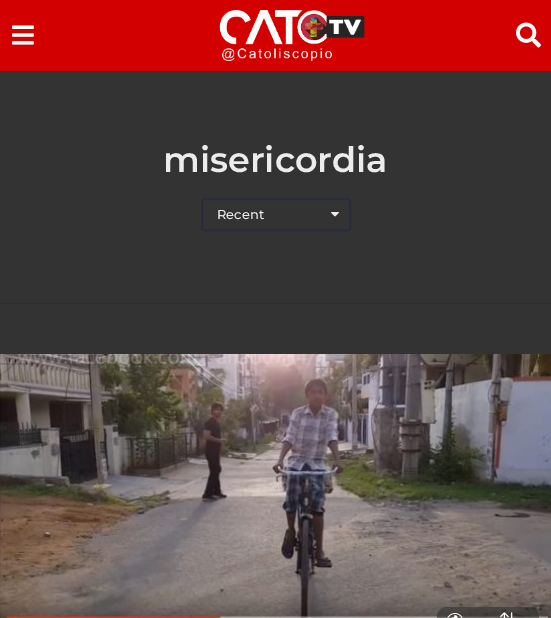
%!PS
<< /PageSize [551 618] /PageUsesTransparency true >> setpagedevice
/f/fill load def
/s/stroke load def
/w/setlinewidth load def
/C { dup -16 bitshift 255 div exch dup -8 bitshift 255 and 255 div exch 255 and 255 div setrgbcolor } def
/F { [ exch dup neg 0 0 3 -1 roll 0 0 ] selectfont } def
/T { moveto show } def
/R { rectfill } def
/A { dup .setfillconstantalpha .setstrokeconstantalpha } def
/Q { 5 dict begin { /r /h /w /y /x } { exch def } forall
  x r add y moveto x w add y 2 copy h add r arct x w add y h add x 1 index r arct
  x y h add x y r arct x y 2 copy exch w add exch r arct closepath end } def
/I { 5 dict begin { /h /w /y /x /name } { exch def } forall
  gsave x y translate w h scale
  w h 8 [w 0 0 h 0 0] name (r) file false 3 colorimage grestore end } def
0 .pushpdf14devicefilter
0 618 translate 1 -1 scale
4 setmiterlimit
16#333333 C
0 0 551 618 R
16#D30000 C
0 0 551 71 R
(1.rgb) 12 25 22 20 I
(2.rgb) 219 10 146 51 I
(3.rgb) 516 22 25 26 I
16#292C3B C
0 303 551 1 R
/Montserrat-SemiBold 35 F
16#ECECEC C
(misericordia) 163 172 T
16#292C3B C
2 w
202 199 148 31 2 Q s
/Montserrat-Medium 13 F
16#ECECEC C
(Recent) 217 219 T
(4.rgb) 331 212 8 5 I
(5.rgb) 0 354 551 264 I
0.5 A
16#282828 C
437 607 102 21 10 Q f
1 A
(6.rgb) 447 613 16 5 I
(7.rgb) 500 612 13 6 I
.poppdf14devicefilter showpage
